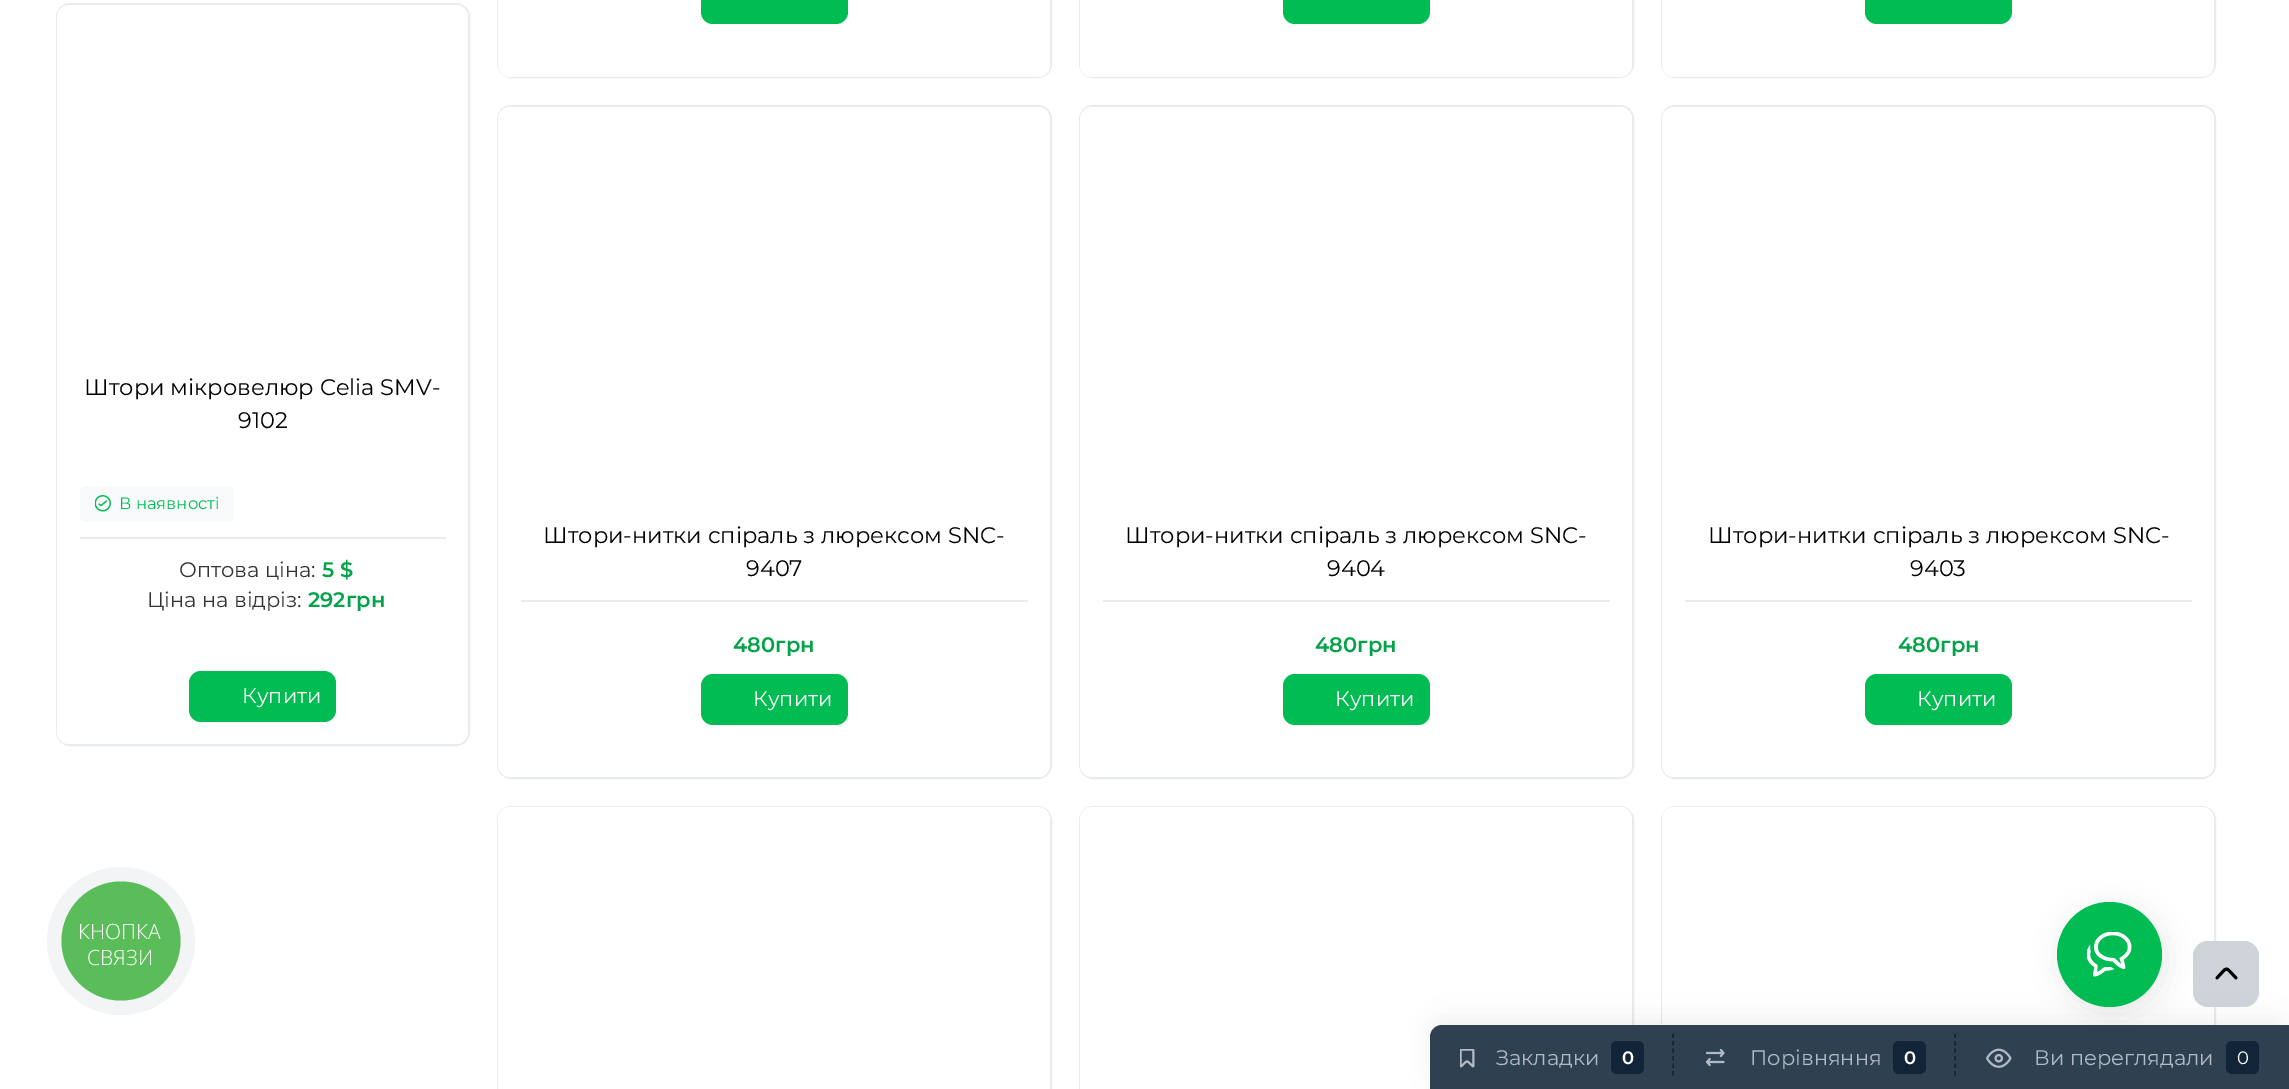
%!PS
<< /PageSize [2289 1089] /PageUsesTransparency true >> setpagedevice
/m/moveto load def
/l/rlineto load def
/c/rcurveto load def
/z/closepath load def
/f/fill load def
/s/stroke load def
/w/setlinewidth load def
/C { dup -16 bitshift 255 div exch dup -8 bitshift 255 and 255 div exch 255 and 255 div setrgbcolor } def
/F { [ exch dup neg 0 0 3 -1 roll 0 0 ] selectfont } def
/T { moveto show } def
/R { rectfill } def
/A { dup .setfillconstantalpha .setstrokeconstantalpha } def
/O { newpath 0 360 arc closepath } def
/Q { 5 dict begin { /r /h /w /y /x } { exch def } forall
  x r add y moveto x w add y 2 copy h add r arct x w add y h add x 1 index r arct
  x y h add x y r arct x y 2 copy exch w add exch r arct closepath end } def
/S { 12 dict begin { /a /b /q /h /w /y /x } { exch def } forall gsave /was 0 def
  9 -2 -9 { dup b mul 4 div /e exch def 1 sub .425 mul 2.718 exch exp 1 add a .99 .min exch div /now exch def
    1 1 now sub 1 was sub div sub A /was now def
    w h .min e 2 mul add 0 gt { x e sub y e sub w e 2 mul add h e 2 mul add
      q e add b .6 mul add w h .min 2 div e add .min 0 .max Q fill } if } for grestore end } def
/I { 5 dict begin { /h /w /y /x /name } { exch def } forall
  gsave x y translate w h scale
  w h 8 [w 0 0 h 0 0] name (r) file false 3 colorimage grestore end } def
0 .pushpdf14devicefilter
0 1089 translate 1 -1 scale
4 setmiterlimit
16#FFFFFF C
0 0 2289 1089 R
16#E9ECEF C
2 w
57 4 412 741 13 Q s
16#FFFFFF C
57 5 411 739 12 Q f
/Montserrat-Regular 22.5 F
16#000000 C
(Штори мікровелюр Celia SMV-) 84 395 T
(9102) 238 428 T
16#F8F9FA C
80 486 154 36 6 Q f
(1.rgb) 95 495 16 17 I
/Montserrat-Regular 16.5 F
16#00BC52 C
(В наявності) 119 509 T
16#E9ECEF C
80 537 366 2 R
/Montserrat-Regular 21 F
16#333333 C
(Оптова ціна:) 179 577 T
/Montserrat-SemiBold 21 F
16#04A349 C
(5 $) 322 577 T
/Montserrat-Regular 21 F
16#333333 C
(Ціна на відріз:) 147 607 T
/Montserrat-SemiBold 21 F
16#04A349 C
(292грн) 308 607 T
16#00BC52 C
189 671 147 51 12 Q f
/Montserrat-Regular 21 F
16#FFFFFF C
(Купити) 242 703 T
16#E9ECEF C
498 -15 553 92 13 Q s
16#FFFFFF C
498 -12 552 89 12 Q f
16#00BC52 C
701 -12 147 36 12 Q f
16#E9ECEF C
1080 -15 553 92 13 Q s
16#FFFFFF C
1080 -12 552 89 12 Q f
16#00BC52 C
1283 -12 147 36 12 Q f
16#E9ECEF C
1662 -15 553 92 13 Q s
16#FFFFFF C
1662 -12 552 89 12 Q f
16#00BC52 C
1865 -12 147 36 12 Q f
16#E9ECEF C
498 106 553 672 13 Q s
16#FFFFFF C
498 107 552 670 12 Q f
/Montserrat-Regular 22.5 F
16#000000 C
(Штори-нитки спіраль з люрексом SNC-) 543 543 T
(9407) 746 576 T
16#E9ECEF C
521 600 507 2 R
/Montserrat-SemiBold 21 F
16#04A349 C
(480грн) 733 652 T
16#00BC52 C
701 674 147 51 12 Q f
/Montserrat-Regular 21 F
16#FFFFFF C
(Купити) 753 706 T
16#E9ECEF C
1080 106 553 672 13 Q s
16#FFFFFF C
1080 107 552 670 12 Q f
/Montserrat-Regular 22.5 F
16#000000 C
(Штори-нитки спіраль з люрексом SNC-) 1125 543 T
(9404) 1327 576 T
16#E9ECEF C
1103 600 507 2 R
/Montserrat-SemiBold 21 F
16#04A349 C
(480грн) 1315 652 T
16#00BC52 C
1283 674 147 51 12 Q f
/Montserrat-Regular 21 F
16#FFFFFF C
(Купити) 1335 706 T
16#E9ECEF C
1662 106 553 672 13 Q s
16#FFFFFF C
1662 107 552 670 12 Q f
/Montserrat-Regular 22.5 F
16#000000 C
(Штори-нитки спіраль з люрексом SNC-) 1708 543 T
(9403) 1910 576 T
16#E9ECEF C
1685 600 507 2 R
/Montserrat-SemiBold 21 F
16#04A349 C
(480грн) 1898 652 T
16#00BC52 C
1865 674 147 51 12 Q f
/Montserrat-Regular 21 F
16#FFFFFF C
(Купити) 1917 706 T
16#E9ECEF C
498 807 553 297 13 Q s
16#FFFFFF C
498 807 552 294 12 Q f
16#E9ECEF C
1080 807 553 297 13 Q s
16#FFFFFF C
1080 807 552 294 12 Q f
16#E9ECEF C
1662 807 553 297 13 Q s
16#FFFFFF C
1662 807 552 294 12 Q f
16#F2F4F5 C
121 941 74 O f
16#5ABD5A C
121 941 59.5 O f
/OpenSans-Light 21 F
16#FFFFFF C
(КНОПКА) 78 939 T
(СВЯЗИ) 87 965 T
16#CED4DA C
2193 941 66 66 15 Q f
16#000000 C
2061 908 105 105 52.5 13.5 .08 S
16#00BC52 C
2109.5 954.5 52.5 O f
(2.rgb) 2087 932 45 45 I
(3.rgb) 2215 967 23 13 I
16#000000 C
1430 1017 859 66 12 13.5 .05 S
16#2F4050 C
1442 1025 m 847 0 l 0 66 l -859 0 l 0 -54 l 0 -6.5 5.5 -12 12 -12 c z f
(4.rgb) 1460 1049 15 19 I
/Montserrat-Regular 21 F
16#B2BBC5 C
(Закладки) 1496 1065 T
16#122538 C
1611 1041 33 33 6 Q f
/Montserrat-SemiBold 18 F
16#FFFFFF C
(0) 1622 1064 T
16#122538 C
1.5 w
[4.5 3] 0 setdash
1673 1033.5 m 0 42 l s
(5.rgb) 1705 1048 20 19 I
/Montserrat-Regular 21 F
16#B2BBC5 C
(Порівняння) 1750 1065 T
16#122538 C
1893 1041 33 33 6 Q f
/Montserrat-SemiBold 18 F
16#FFFFFF C
(0) 1904 1064 T
16#122538 C
1955 1033.5 m 0 42 l s
(6.rgb) 1986 1048 26 20 I
/Montserrat-Regular 21 F
16#B2BBC5 C
(Ви переглядали) 2034 1065 T
16#122538 C
2226 1041 33 33 6 Q f
/Montserrat-Regular 18 F
16#FFFFFF C
(0) 2237 1064 T
.poppdf14devicefilter showpage
